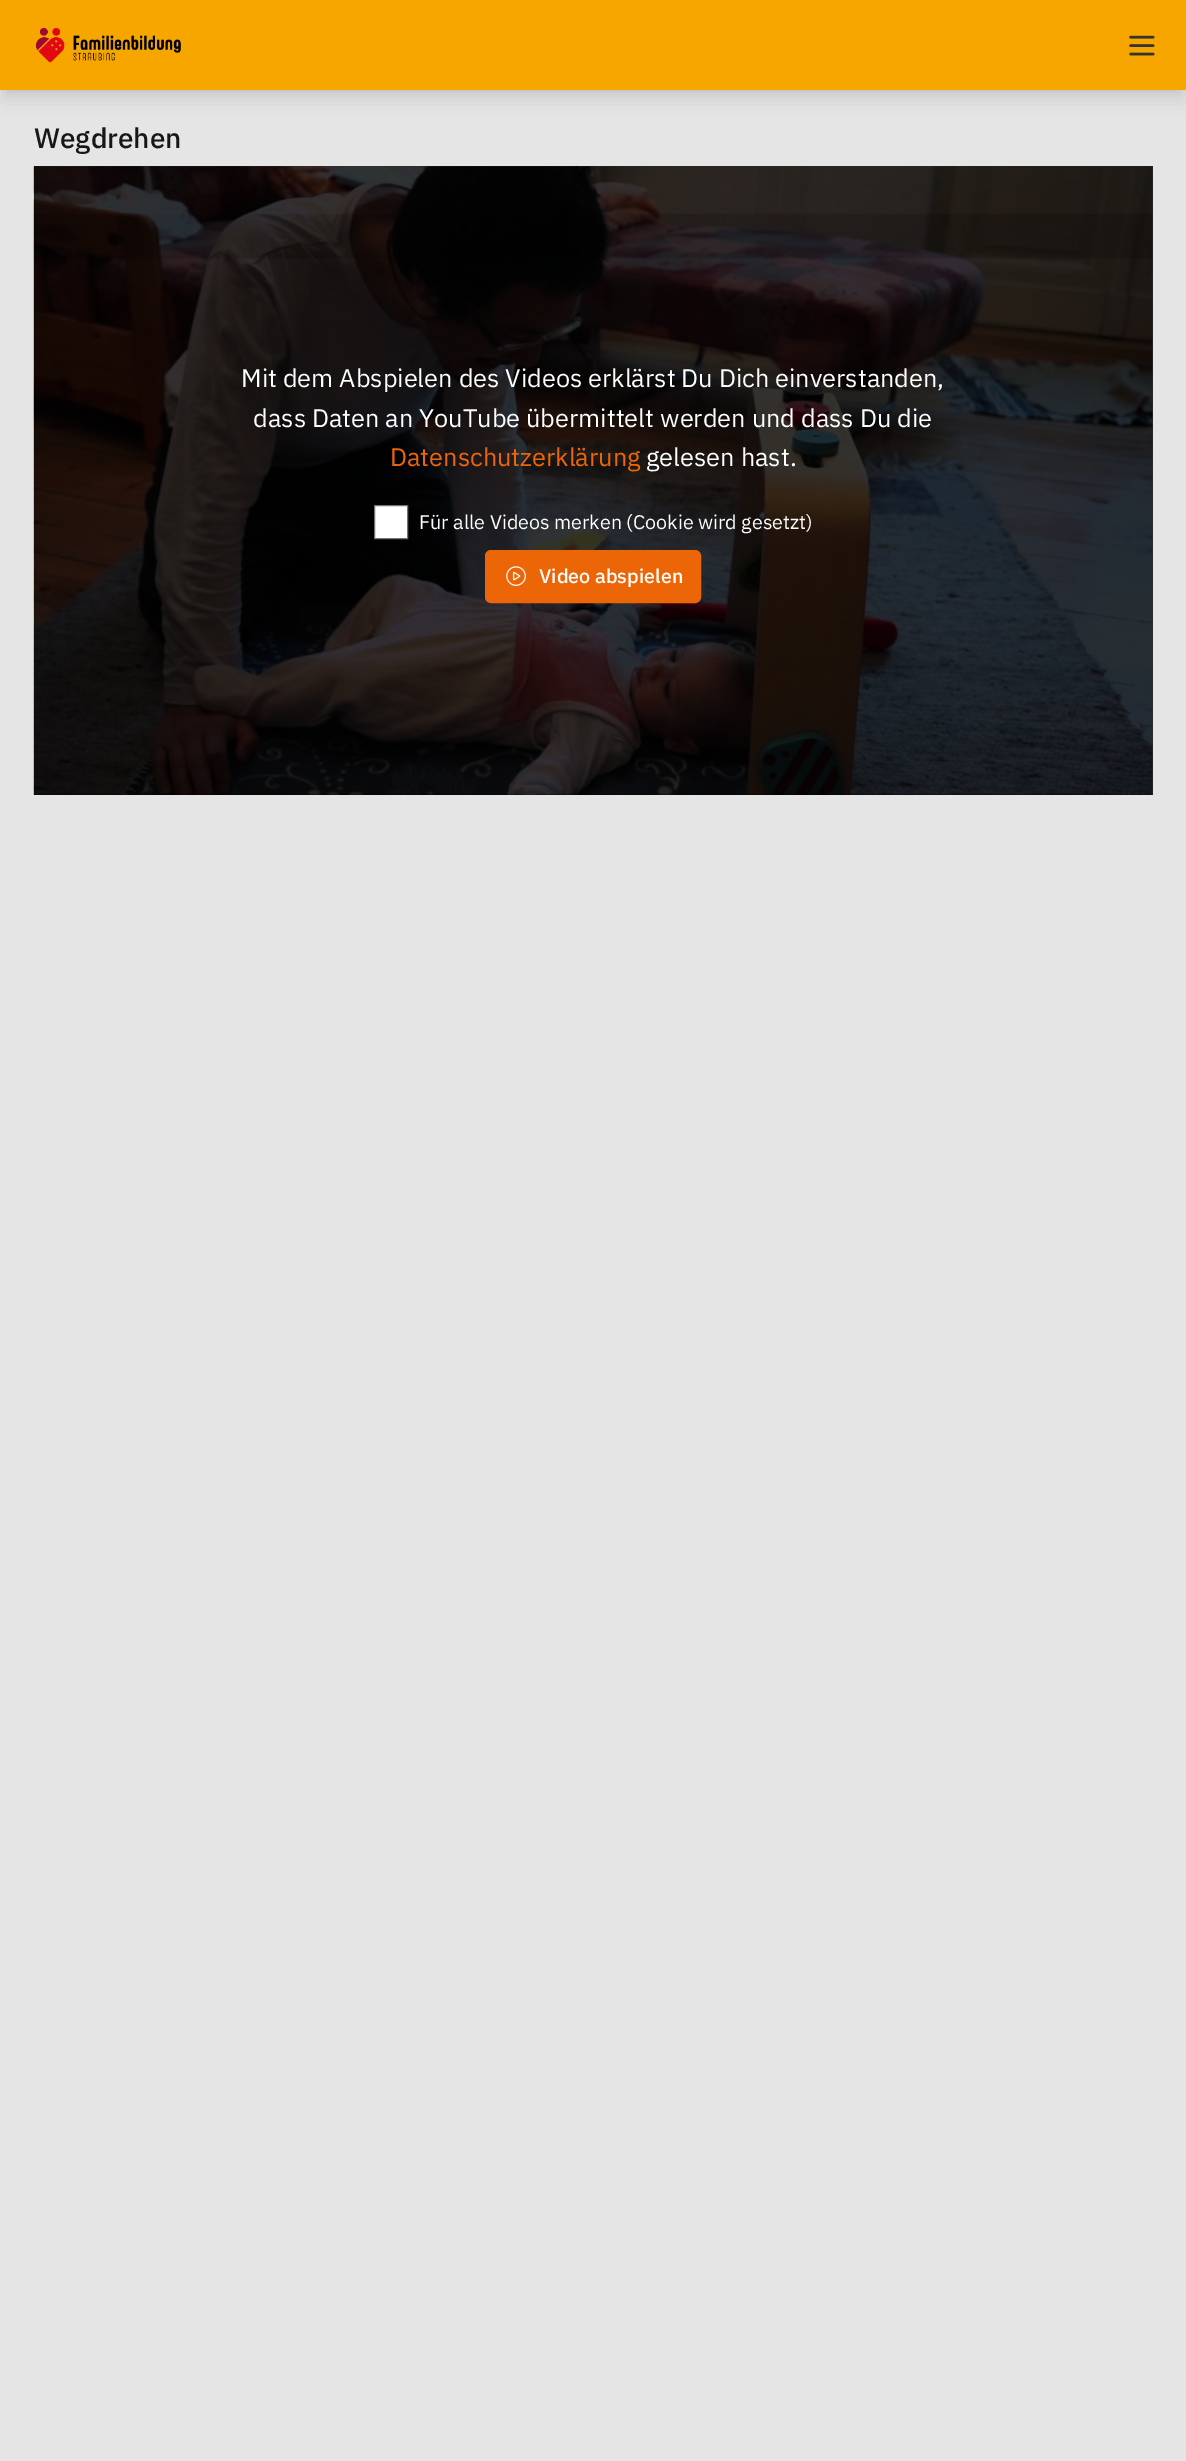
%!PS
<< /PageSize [1186 2461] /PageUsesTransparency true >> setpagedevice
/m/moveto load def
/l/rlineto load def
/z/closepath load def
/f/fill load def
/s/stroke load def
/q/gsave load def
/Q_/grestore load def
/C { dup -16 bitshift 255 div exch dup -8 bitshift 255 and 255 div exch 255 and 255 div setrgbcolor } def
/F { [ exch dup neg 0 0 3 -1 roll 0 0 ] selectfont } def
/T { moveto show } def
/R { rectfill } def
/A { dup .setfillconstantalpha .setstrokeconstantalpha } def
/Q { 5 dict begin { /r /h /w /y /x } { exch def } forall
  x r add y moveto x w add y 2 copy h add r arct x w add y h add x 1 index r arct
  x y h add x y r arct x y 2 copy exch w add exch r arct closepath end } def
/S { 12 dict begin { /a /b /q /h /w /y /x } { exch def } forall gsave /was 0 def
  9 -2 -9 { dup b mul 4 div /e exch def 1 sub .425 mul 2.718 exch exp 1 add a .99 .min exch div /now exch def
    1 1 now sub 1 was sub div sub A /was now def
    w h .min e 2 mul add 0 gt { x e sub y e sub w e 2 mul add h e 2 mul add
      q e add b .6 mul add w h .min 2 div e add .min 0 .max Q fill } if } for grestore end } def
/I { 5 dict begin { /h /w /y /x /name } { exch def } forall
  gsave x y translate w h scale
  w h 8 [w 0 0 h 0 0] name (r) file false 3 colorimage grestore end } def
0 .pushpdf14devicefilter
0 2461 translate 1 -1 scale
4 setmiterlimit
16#E5E5E5 C
0 0 1186 2461 R
16#2E2E2E C
34 166 1119 629 R
16#000000 C
5 10 1176 80 0 4 .1 S
4 16 1179 83 0 9.5 .1 S
16#F7A600 C
0 0 1186 90 R
(1.rgb) 35 27 146 36 I
(2.rgb) 1129 35 26 21 I
/IBMPlexSans-Medium 28 F
16#171717 C
(Wegdrehen) 34 148 T
(3.rgb) 33 166 1120 629 I
/IBMPlexSans-Regular 25.3 F
16#FFFFFF C
(Mit dem Abspielen des Videos erklärst Du Dich einverstanden,) 241 387 T
(dass Daten an YouTube übermittelt werden und dass Du die) 253 427 T
16#EC6608 C
(Datenschutzerklärung) 390 466 T
16#FFFFFF C
(gelesen hast.) 646 466 T
374.5 505.5 m 33 0 l 0 33 l -33 0 l z q f Q_
16#737373 C
s
/IBMPlexSans-Regular 19.7 F
16#FFFFFF C
(Für alle Videos merken \(Cookie wird gesetzt\)) 419 529 T
16#EC6608 C
485.5 550.5 215 52 5.5 Q q f Q_
s
(4.rgb) 506 566 20 20 I
/IBMPlexSans-Medium 19.7 F
16#FFFFFF C
(Video abspielen) 539 583 T
.poppdf14devicefilter showpage
